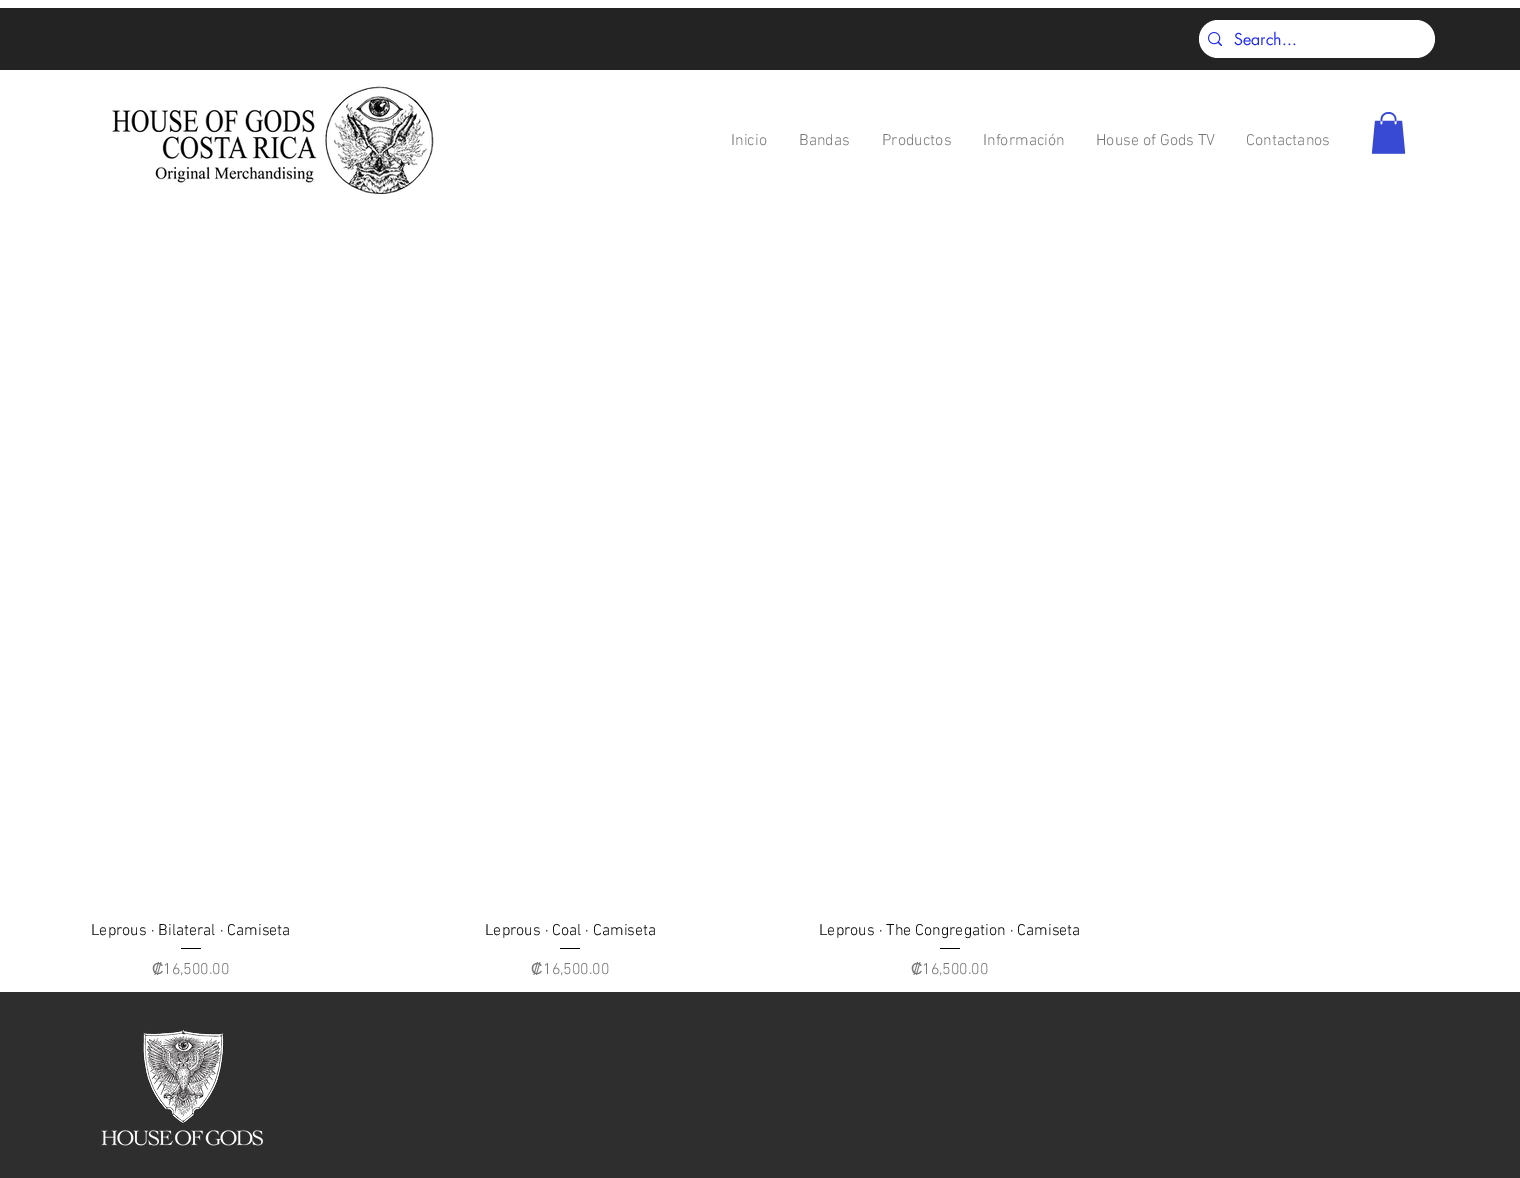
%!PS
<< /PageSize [1520 1178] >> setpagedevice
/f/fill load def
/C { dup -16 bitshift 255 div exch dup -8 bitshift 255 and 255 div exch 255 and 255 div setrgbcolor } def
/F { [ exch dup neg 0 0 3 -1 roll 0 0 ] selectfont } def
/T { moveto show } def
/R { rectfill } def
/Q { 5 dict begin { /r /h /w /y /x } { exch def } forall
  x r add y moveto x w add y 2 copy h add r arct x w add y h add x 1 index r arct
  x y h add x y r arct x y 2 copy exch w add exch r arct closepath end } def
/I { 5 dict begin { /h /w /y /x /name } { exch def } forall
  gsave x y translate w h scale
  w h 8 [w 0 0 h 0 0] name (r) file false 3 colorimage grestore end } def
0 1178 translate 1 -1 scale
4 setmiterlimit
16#FFFFFF C
0 0 1520 1178 R
16#242323 C
0 8 1520 62 R
16#FFFFFF C
1199 20 236 38 19 Q f
(1.rgb) 1208 32 14 14 I
/futura-Regular 16 F
16#1F2BF3 C
(Search...) 1234 45 T
(2.rgb) 112 86 322 109 I
/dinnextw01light-Light 16 F
16#767676 C
(Inicio) 731 145 T
(Bandas) 799 145 T
(Productos) 882 145 T
(Información) 983 145 T
(House of Gods TV) 1096 145 T
(Contactanos) 1246 145 T
(3.rgb) 1371 112 35 42 I
16#000000 C
(Leprous · Bilateral · Camiseta) 91 935 T
181 948 20 1 R
/LiberationSans-Regular 16 F
16#767676 C
(₡) 152 974 T
/dinnextw01light-Light 16 F
(16,500.00) 163 974 T
16#000000 C
(Leprous · Coal · Camiseta) 485 935 T
560 948 20 1 R
/LiberationSans-Regular 16 F
16#767676 C
(₡) 531 974 T
/dinnextw01light-Light 16 F
(16,500.00) 543 974 T
16#000000 C
(Leprous · The Congregation · Camiseta) 819 935 T
940 948 20 1 R
/LiberationSans-Regular 16 F
16#767676 C
(₡) 911 974 T
/dinnextw01light-Light 16 F
(16,500.00) 922 974 T
16#2F2E2E C
0 992 1520 186 R
(4.rgb) 101 1029 162 117 I
showpage
